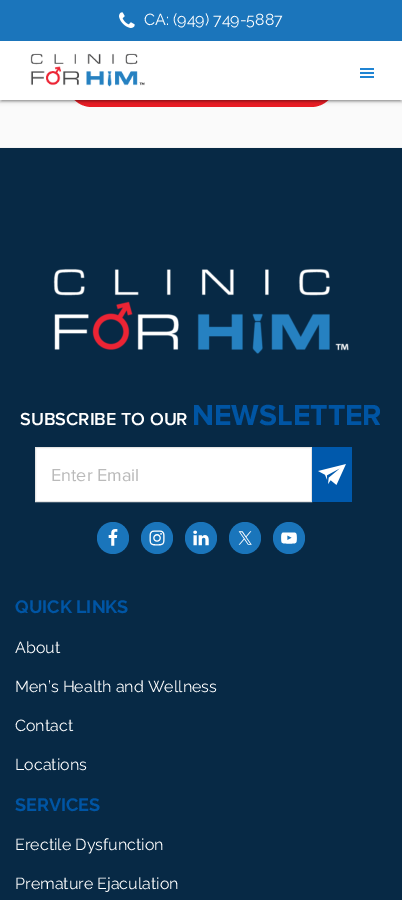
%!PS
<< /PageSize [402 900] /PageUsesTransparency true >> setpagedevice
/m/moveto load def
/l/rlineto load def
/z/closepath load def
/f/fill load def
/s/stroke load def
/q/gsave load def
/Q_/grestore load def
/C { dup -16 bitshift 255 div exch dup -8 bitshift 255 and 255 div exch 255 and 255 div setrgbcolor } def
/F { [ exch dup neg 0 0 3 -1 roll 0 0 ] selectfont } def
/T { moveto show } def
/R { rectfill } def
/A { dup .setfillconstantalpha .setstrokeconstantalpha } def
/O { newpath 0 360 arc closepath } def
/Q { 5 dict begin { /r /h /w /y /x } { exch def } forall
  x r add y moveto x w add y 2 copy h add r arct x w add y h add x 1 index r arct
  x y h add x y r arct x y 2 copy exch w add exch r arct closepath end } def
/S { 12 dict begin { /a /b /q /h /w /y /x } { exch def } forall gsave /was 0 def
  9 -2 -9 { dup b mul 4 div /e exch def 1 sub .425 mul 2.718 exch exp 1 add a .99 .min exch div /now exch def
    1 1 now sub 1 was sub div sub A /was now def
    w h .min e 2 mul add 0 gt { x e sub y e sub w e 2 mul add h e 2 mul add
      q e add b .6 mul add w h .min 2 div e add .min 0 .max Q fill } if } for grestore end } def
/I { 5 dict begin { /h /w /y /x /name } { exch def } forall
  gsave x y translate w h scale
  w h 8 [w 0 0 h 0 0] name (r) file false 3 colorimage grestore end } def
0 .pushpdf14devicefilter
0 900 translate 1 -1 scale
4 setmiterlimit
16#072945 C
0 0 402 900 R
16#FAFAFA C
0 100 402 47 R
16#EA1C24 C
67 57 269 50 25 Q f
16#000000 C
0 41 402 60 0 2.5 .2 S
0 42 402 60 0 1 .14 S
16#1B75BB C
0 0 402 41 R
(1.rgb) 119 12 16 16 I
/Raleway-Regular 16 F
16#FFFFFF C
(CA: \(949\) 749-5887) 144 25 T
16#000000 C
2 45 398 56 0 .5 .12 S
16#FFFFFF C
0 41 402 59 R
(2.rgb) 30 53 115 34 I
(3.rgb) 360 68 14 10 I
16#F3F3F3 C
0 147 402 1 R
(4.rgb) 53 268 296 86 I
/ProximaNova-SemiBold 18 F
16#FFFFFF C
(SUBSCRIBE TO OUR) 20 425 T
/ProximaNova-Bold 30 F
16#0055A4 C
(NEWSLETTER) 192 425 T
16#FFFFFF C
35.5 447.5 m 276 0 l 0 54 l -276 0 l z q f Q_
16#E4E4E4 C
s
/ProximaNova-Regular 18 F
16#BABABA C
(Enter Email) 51 481 T
16#0059AC C
312 447 40 55 R
(5.rgb) 318 464 28 21 I
16#1A75BB C
113 538 16 O f
(6.rgb) 108 529 10 17 I
157 538 16 O f
(7.rgb) 149 530 16 16 I
201 538 16 O f
(8.rgb) 193 530 16 16 I
245 538 16 O f
(9.rgb) 238 531 14 14 I
289 538 16 O f
(10.rgb) 281 532 16 12 I
/Raleway-Bold 18 F
16#0055A4 C
(QUICK LINKS) 15 613 T
/Raleway-Regular 16 F
16#FFFFFF C
(About) 15 653 T
(Men’s Health and Wellness) 15 692 T
(Contact) 15 731 T
(Locations) 15 770 T
/Raleway-Bold 18 F
16#0055A4 C
(SERVICES) 15 811 T
/Raleway-Regular 16 F
16#FFFFFF C
(Erectile Dysfunction) 15 850 T
(Premature Ejaculation) 15 889 T
.poppdf14devicefilter showpage
